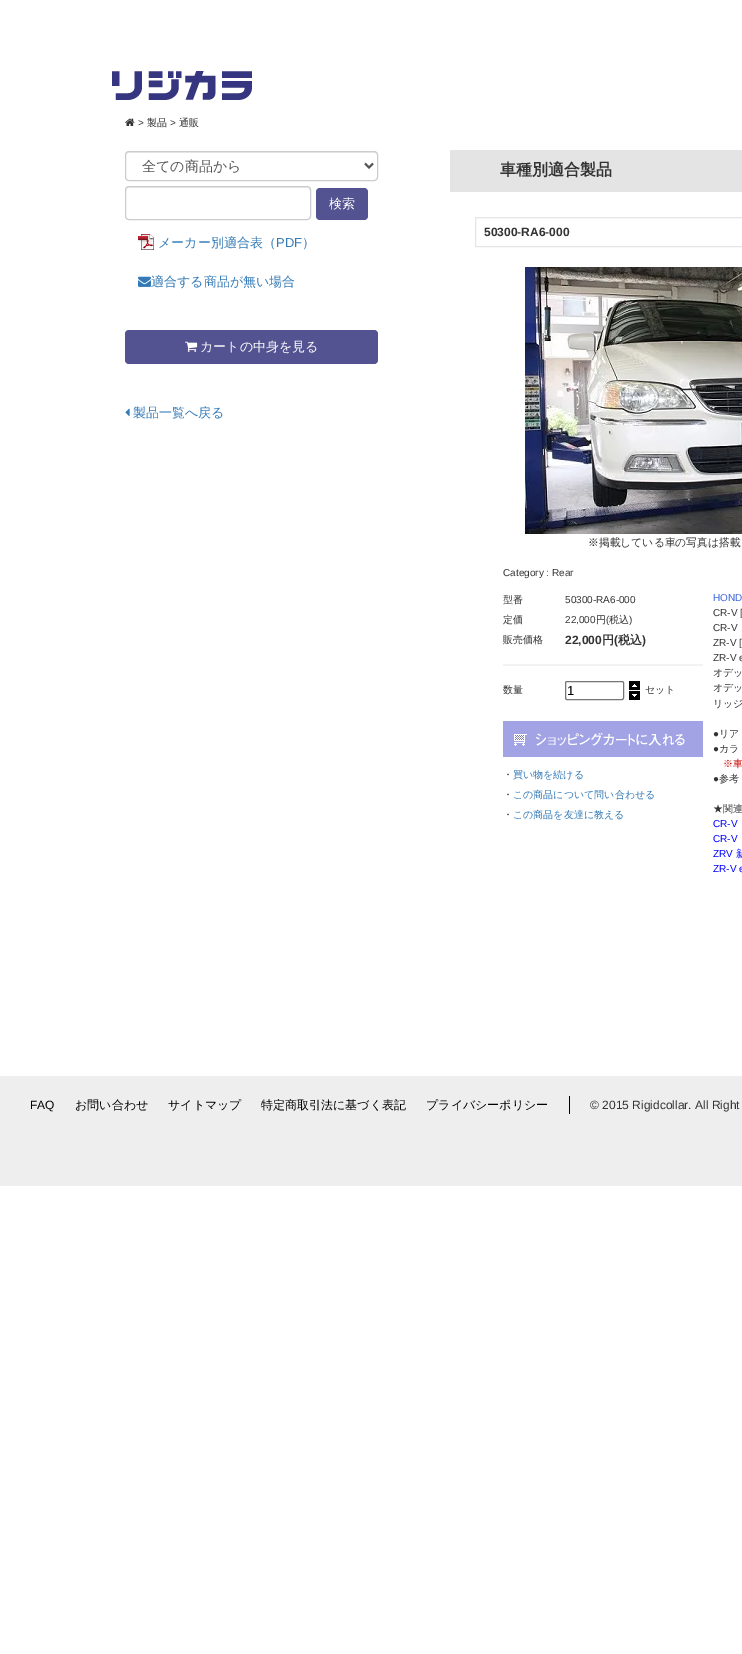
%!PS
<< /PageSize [742 1654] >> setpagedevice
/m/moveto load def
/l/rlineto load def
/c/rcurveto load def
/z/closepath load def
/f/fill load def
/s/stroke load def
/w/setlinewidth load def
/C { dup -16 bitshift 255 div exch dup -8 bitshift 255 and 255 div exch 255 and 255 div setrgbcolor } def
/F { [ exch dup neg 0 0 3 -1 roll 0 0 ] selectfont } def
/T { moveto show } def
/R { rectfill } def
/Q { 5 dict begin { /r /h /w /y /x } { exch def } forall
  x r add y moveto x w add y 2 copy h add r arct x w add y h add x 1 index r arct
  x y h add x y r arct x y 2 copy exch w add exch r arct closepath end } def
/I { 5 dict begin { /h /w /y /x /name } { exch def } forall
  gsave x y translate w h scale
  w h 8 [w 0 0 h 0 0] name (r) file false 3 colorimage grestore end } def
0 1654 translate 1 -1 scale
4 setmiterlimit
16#FFFFFF C
0 0 742 1654 R
(1.rgb) 112 71 140 29 I
(2.rgb) 125 118 10 8 I
/LiberationSans-Regular 10 F
16#333333 C
(>) 138 126 T
/WenQuanYiZenHei-Medium 10 F
(製品) 147 126 T
/LiberationSans-Regular 10 F
(>) 170 126 T
/WenQuanYiZenHei-Medium 10 F
(通販) 179 126 T
16#ECECEC C
129 153 m 246 0 l 2 1 l 0 2 l 0 -2 -1 -4 -3 -4 c -245 0 l -2 0 -3 2 -3 4 c 0 -2 1 -3 3 -3 c z f
16#CCCCCC C
125.5 151.5 252 29 3.5 Q s
16#555555 C
2 w
365 163.5 m 4 4 l 4 -4 l s
/WenQuanYiZenHei-Medium 14 F
(全ての商品から) 142 171 T
16#ECECEC C
129 188 m 179 0 l 1 1 l 1 2 l 0 -2 -1 -4 -3 -4 c -179 0 l -2 1 -2 2 -2 4 c 0 -2 1 -3 3 -3 c z f
16#CCCCCC C
1 w
125.5 186.5 185 33 3.5 Q s
16#545391 C
316 188 52 32 4 Q f
/WenQuanYiZenHei-Medium 13 F
16#FFFFFF C
(検索) 329 208 T
(3.rgb) 138 234 16 16 I
16#337AB7 C
(メーカー別適合表（) 158 247 T
/LiberationSans-Regular 13 F
(PDF) 276 247 T
/WenQuanYiZenHei-Medium 13 F
(）) 302 247 T
(4.rgb) 138 276 13 11 I
(適合する商品が無い場合) 151 286 T
16#545391 C
125 330 253 34 4 Q f
(5.rgb) 185 341 13 11 I
16#FFFFFF C
(カートの中身を見る) 200 351 T
(6.rgb) 125 408 5 8 I
16#337AB7 C
(製品一覧へ戻る) 133 417 T
16#E4E4E4 C
450 150 292 42 R
/WenQuanYiZenHei-Bold 16 F
16#333333 C
(車種別適合製品) 500 175 T
16#E5E5E5 C
475.5 217.5 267 29 rectstroke
/LiberationSans-Bold 12 F
16#333333 C
(50300-RA6-000) 484 236 T
(7.rgb) 525 267 217 267 I
/WenQuanYiZenHei-Medium 10.8 F
(※掲載している車の写真は搭載) 588 546 T
/LiberationSans-Regular 10 F
(Category : Rear) 503 576 T
/WenQuanYiZenHei-Medium 10 F
(型番) 503 603 T
/LiberationSans-Regular 10 F
(50300-RA6-000) 565 603 T
/WenQuanYiZenHei-Medium 10 F
(定価) 503 623 T
/LiberationSans-Regular 10 F
(22,000) 565 623 T
/WenQuanYiZenHei-Medium 10 F
(円) 596 623 T
/LiberationSans-Regular 10 F
(\() 606 623 T
/WenQuanYiZenHei-Medium 10 F
(税込) 609 623 T
/LiberationSans-Regular 10 F
(\)) 629 623 T
/WenQuanYiZenHei-Medium 10 F
(販売価格) 503 643 T
/LiberationSans-Bold 12 F
(22,000) 565 644 T
/WenQuanYiZenHei-Bold 12 F
(円) 602 644 T
/LiberationSans-Bold 12 F
(\() 614 644 T
/WenQuanYiZenHei-Bold 12 F
(税込) 618 644 T
/LiberationSans-Bold 12 F
(\)) 642 644 T
16#F2F2F2 C
503 664 200 2 R
/WenQuanYiZenHei-Medium 10 F
16#333333 C
(数量) 503 693 T
16#767676 C
565.5 681.5 58 18 1.5 Q s
/LiberationSans-Regular 13 F
16#000000 C
(1) 567 695 T
(8.rgb) 629 681 11 9 I
(9.rgb) 629 691 11 9 I
/WenQuanYiZenHei-Medium 10 F
16#333333 C
(セット) 645 693 T
(10.rgb) 503 721 200 36 I
(・) 503 778 T
16#337AB7 C
(買い物を続ける) 513 778 T
16#333333 C
(・) 503 798 T
16#337AB7 C
(この商品について問い合わせる) 513 798 T
16#333333 C
(・) 503 818 T
16#337AB7 C
(この商品を友達に教える) 513 818 T
/LiberationSans-Regular 10 F
16#4169E1 C
(HOND) 713 601 T
16#333333 C
(CR-V [) 713 616 T
(CR-V) 713 631 T
(ZR-V [) 713 646 T
(ZR-V e) 713 661 T
/WenQuanYiZenHei-Medium 10 F
(オデッ) 713 676 T
(オデッ) 713 691 T
(リッジ) 713 707 T
/LiberationSans-Regular 10 F
(●) 713 737 T
/WenQuanYiZenHei-Medium 10 F
(リア) 719 737 T
/LiberationSans-Regular 10 F
(●) 713 752 T
/WenQuanYiZenHei-Medium 10 F
(カラ) 719 752 T
16#CC0000 C
(※車) 723 767 T
/LiberationSans-Regular 10 F
16#333333 C
(●) 713 782 T
/WenQuanYiZenHei-Medium 10 F
(参考) 719 782 T
(★関連) 713 812 T
/LiberationSans-Regular 10 F
16#0000FF C
(CR-V) 713 827 T
(CR-V) 713 842 T
(ZRV) 713 857 T
/WenQuanYiZenHei-Medium 10 F
(新) 736 857 T
/LiberationSans-Regular 10 F
(ZR-V e) 713 872 T
16#EEEEEE C
0 1076 742 110 R
/LiberationSans-Regular 12 F
16#000000 C
(FAQ) 30 1109 T
/WenQuanYiZenHei-Medium 12 F
(お問い合わせ) 75 1109 T
(サイトマップ) 168 1109 T
(特定商取引法に基づく表記) 261 1109 T
(プライバシーポリシー) 426 1109 T
569 1096 1 18 R
/LiberationSans-Regular 12 F
16#333333 C
(© 2015 Rigidcollar. All Right) 590 1109 T
showpage
